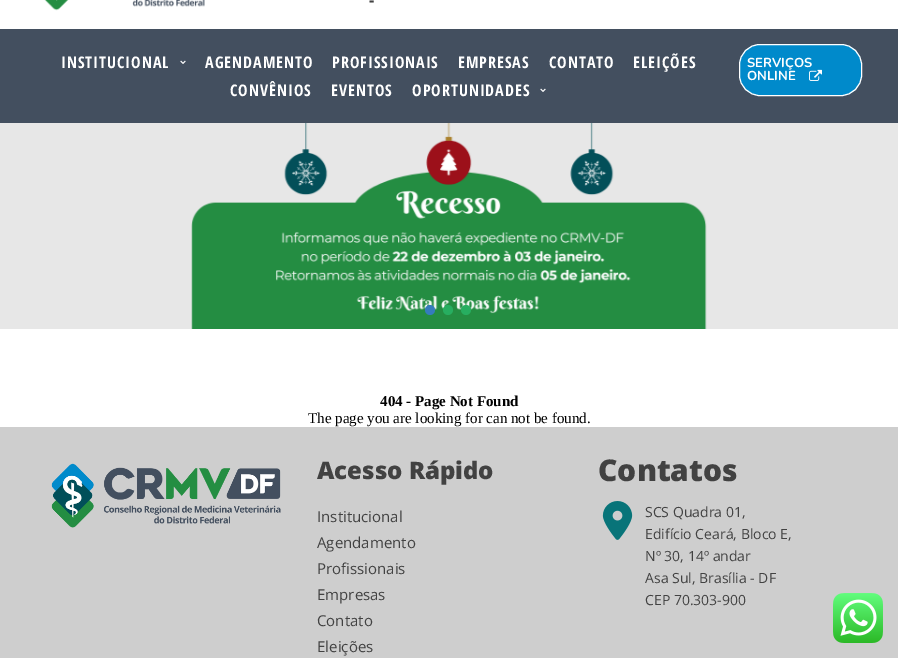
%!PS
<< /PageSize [898 658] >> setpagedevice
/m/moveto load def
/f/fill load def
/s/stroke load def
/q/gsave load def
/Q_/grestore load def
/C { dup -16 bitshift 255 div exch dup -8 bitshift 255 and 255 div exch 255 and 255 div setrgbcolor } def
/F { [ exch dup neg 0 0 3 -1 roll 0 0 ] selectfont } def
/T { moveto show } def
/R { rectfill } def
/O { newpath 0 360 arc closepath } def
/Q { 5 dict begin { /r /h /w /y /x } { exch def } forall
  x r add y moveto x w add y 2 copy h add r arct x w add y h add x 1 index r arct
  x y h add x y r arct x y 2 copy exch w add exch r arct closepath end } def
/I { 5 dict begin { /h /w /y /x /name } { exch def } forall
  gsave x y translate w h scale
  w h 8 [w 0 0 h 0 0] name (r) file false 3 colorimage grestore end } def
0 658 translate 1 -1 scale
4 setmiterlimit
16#FFFFFF C
0 0 898 658 R
(1.rgb) 44 0 161 11 I
/OpenSansCondensed-Bold 17 F
16#424242 C
(-) 369 6 T
16#434F5F C
0 29 898 94 R
/OpenSansCondensed-Bold 16 F
16#FFFFFF C
61 68 m 1 0 (INSTITUCIONAL) ashow
(2.rgb) 180 60 6 4 I
205 68 m 1 0 (AGENDAMENTO) ashow
332 68 m 1 0 (PROFISSIONAIS) ashow
458 68 m 1 0 (EMPRESAS) ashow
549 68 m 1 0 (CONTATO) ashow
633 68 m 1 0 (ELEIÇÕES) ashow
230 96 m 1 0 (CONVÊNIOS) ashow
331 96 m 1 0 (EVENTOS) ashow
412 96 m 1 0 (OPORTUNIDADES) ashow
(2.rgb) 540 88 6 4 I
16#008ACB C
739.5 44.5 122 51 20.5 Q q f Q_
16#FFFFFF C
s
/Nunito-Bold 13 F
(SERVIÇOS) 747 67 T
(ONLINE) 747 80 T
(3.rgb) 809 69 13 12 I
(4.rgb) 0 123 898 206 I
16#357CBD C
430 310 5 O f
16#27AE60 C
448 310 5 O f
466 310 5 O f
/LiberationSerif-Bold 15 F
16#000000 C
(404 - Page Not Found) 380 406 T
/LiberationSerif-Regular 15 F
(The page you are looking for can not be found.) 308 423 T
16#CECECE C
0 427 898 231 R
(5.rgb) 51 463 230 65 I
/OpenSans-ExtraBold 24 F
16#424242 C
(Acesso Rápido) 317 479 T
/OpenSans-Regular 15 F
(Institucional) 317 522 T
(Agendamento) 317 548 T
(Profissionais) 317 574 T
(Empresas) 317 600 T
(Contato) 317 626 T
(Eleições) 317 652 T
/OpenSans-ExtraBold 30 F
(Contatos) 598 481 T
(6.rgb) 602 501 31 39 I
/OpenSans-Regular 14 F
(SCS Quadra 01,) 645 517 T
(Edifício Ceará, Bloco E,) 645 539 T
(Nº 30, 14º andar) 645 561 T
(Asa Sul, Brasília - DF) 645 583 T
(CEP 70.303-900) 645 605 T
(7.rgb) 833 593 50 50 I
showpage
